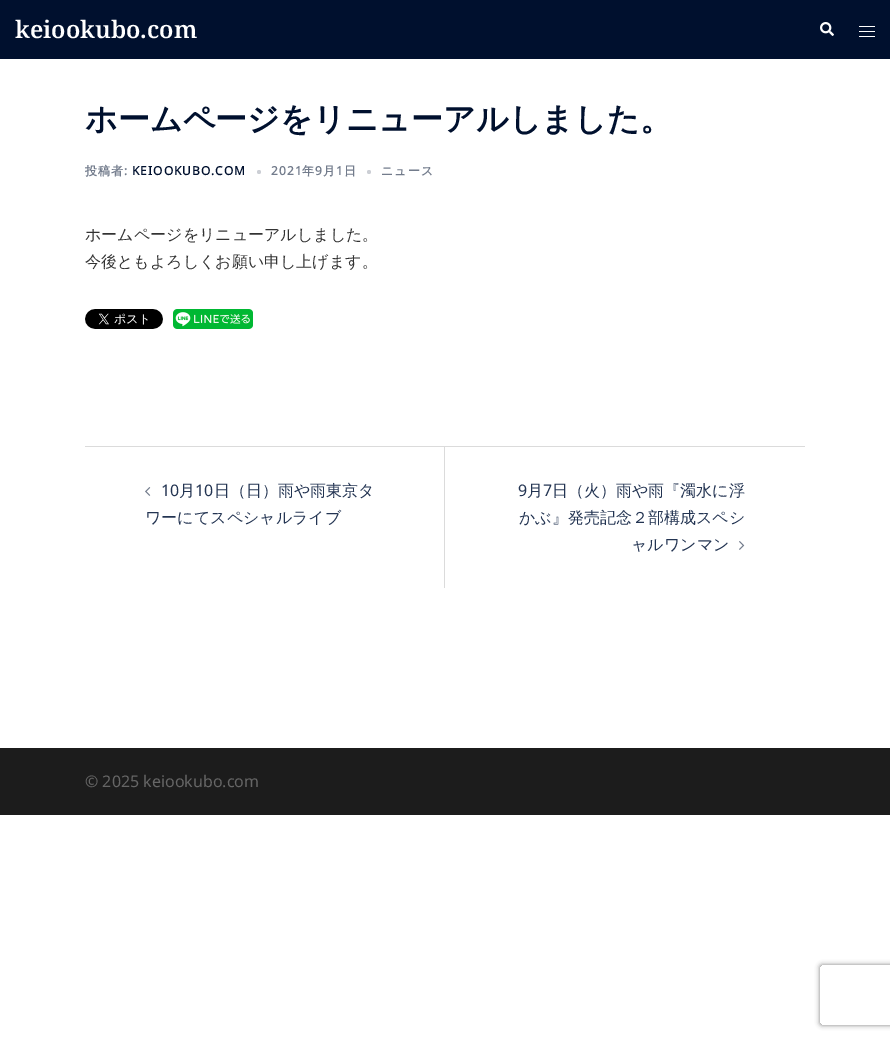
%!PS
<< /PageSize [890 1039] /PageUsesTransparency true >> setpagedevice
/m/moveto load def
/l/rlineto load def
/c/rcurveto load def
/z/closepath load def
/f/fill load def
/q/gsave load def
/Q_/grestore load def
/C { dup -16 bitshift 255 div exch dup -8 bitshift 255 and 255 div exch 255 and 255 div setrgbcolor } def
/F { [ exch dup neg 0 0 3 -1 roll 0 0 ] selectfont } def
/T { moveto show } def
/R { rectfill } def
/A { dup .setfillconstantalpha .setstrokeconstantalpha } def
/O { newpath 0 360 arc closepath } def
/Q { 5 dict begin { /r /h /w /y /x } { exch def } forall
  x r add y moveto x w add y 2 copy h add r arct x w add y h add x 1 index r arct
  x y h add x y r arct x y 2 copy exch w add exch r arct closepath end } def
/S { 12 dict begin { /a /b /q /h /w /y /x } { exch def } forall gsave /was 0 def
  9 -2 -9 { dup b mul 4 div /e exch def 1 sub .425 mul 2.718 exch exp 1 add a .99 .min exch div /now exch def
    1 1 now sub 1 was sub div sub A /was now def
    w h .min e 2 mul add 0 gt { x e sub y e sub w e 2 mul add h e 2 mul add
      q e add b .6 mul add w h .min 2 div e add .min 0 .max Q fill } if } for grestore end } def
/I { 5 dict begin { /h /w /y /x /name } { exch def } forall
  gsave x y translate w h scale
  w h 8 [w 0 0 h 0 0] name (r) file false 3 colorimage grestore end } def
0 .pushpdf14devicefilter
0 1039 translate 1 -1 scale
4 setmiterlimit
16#FFFFFF C
0 0 890 1039 R
16#00102E C
0 0 890 59 R
/NotoSerif-SemiBold 24 F
16#FFFFFF C
(keiookubo.com) 15 38 T
(1.rgb) 820 22 14 14 I
859 26 16 1 R
859 31 16 1 R
859 36 16 1 R
/WenQuanYiZenHei-Bold 32 F
16#00102E C
(ホームページをリニューアルしました。) 85 130 T
/WenQuanYiZenHei-Bold 12 F
16#737C8C C
85 175 m 1 0 (投稿者) ashow
/NotoSans-Bold 12 F
124 175 m 1 0 (:) ashow
16#00102E C
132 175 m 1 0 (KEIOOKUBO.COM) ashow
16#CCCFD5 C
259 172 2 O f
16#737C8C C
271 175 m 1 0 (2021) ashow
/WenQuanYiZenHei-Bold 12 F
302 175 m 1 0 (年) ashow
/NotoSans-Bold 12 F
315 175 m 1 0 (9) ashow
/WenQuanYiZenHei-Bold 12 F
323 175 m 1 0 (月) ashow
/NotoSans-Bold 12 F
336 175 m 1 0 (1) ashow
/WenQuanYiZenHei-Bold 12 F
344 175 m 1 0 (日) ashow
16#CCCFD5 C
369 172 2 O f
16#737C8C C
381 175 m 1 0 (ニュース) ashow
/WenQuanYiZenHei-Medium 16 F
16#333333 C
(ホームページをリニューアルしました。) 85 240 T
(今後ともよろしくお願い申し上げます。) 85 267 T
(2.rgb) 85 309 78 20 I
(3.rgb) 173 309 80 20 I
16#DBDBDB C
85 446 720 1 R
444 447 1 141 R
(4.rgb) 145 487 6 9 I
/NotoSans-Regular 16 F
16#233452 C
(10) 161 496 T
/WenQuanYiZenHei-Medium 16 F
(月) 179 496 T
/NotoSans-Regular 16 F
(10) 195 496 T
/WenQuanYiZenHei-Medium 16 F
(日（日）雨や雨東京タ) 214 496 T
(ワーにてスペシャルライブ) 145 523 T
/NotoSans-Regular 16 F
(9) 518 496 T
/WenQuanYiZenHei-Medium 16 F
(月) 527 496 T
/NotoSans-Regular 16 F
(7) 543 496 T
/WenQuanYiZenHei-Medium 16 F
(日（火）雨や雨『濁水に浮) 552 496 T
(かぶ』発売記念２部構成スペシ) 519 523 T
(ャルワンマン) 631 550 T
(5.rgb) 739 541 6 9 I
16#1C1C1C C
0 748 890 67 R
/NotoSans-Regular 16 F
16#666666 C
(© 2025 keiookubo.com) 85 787 T
q
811 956 m 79 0 l 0 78 l -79 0 l z 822 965 m 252 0 l 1 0 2 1 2 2 c 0 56 l 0 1 -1 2 -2 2 c -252 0 l -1 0 -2 -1 -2 -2 c 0 -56 l 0 -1 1 -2 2 -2 c z eoclip newpath
16#808080 C
820 965 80 60 2 2.5 1 S
Q_
.poppdf14devicefilter showpage
